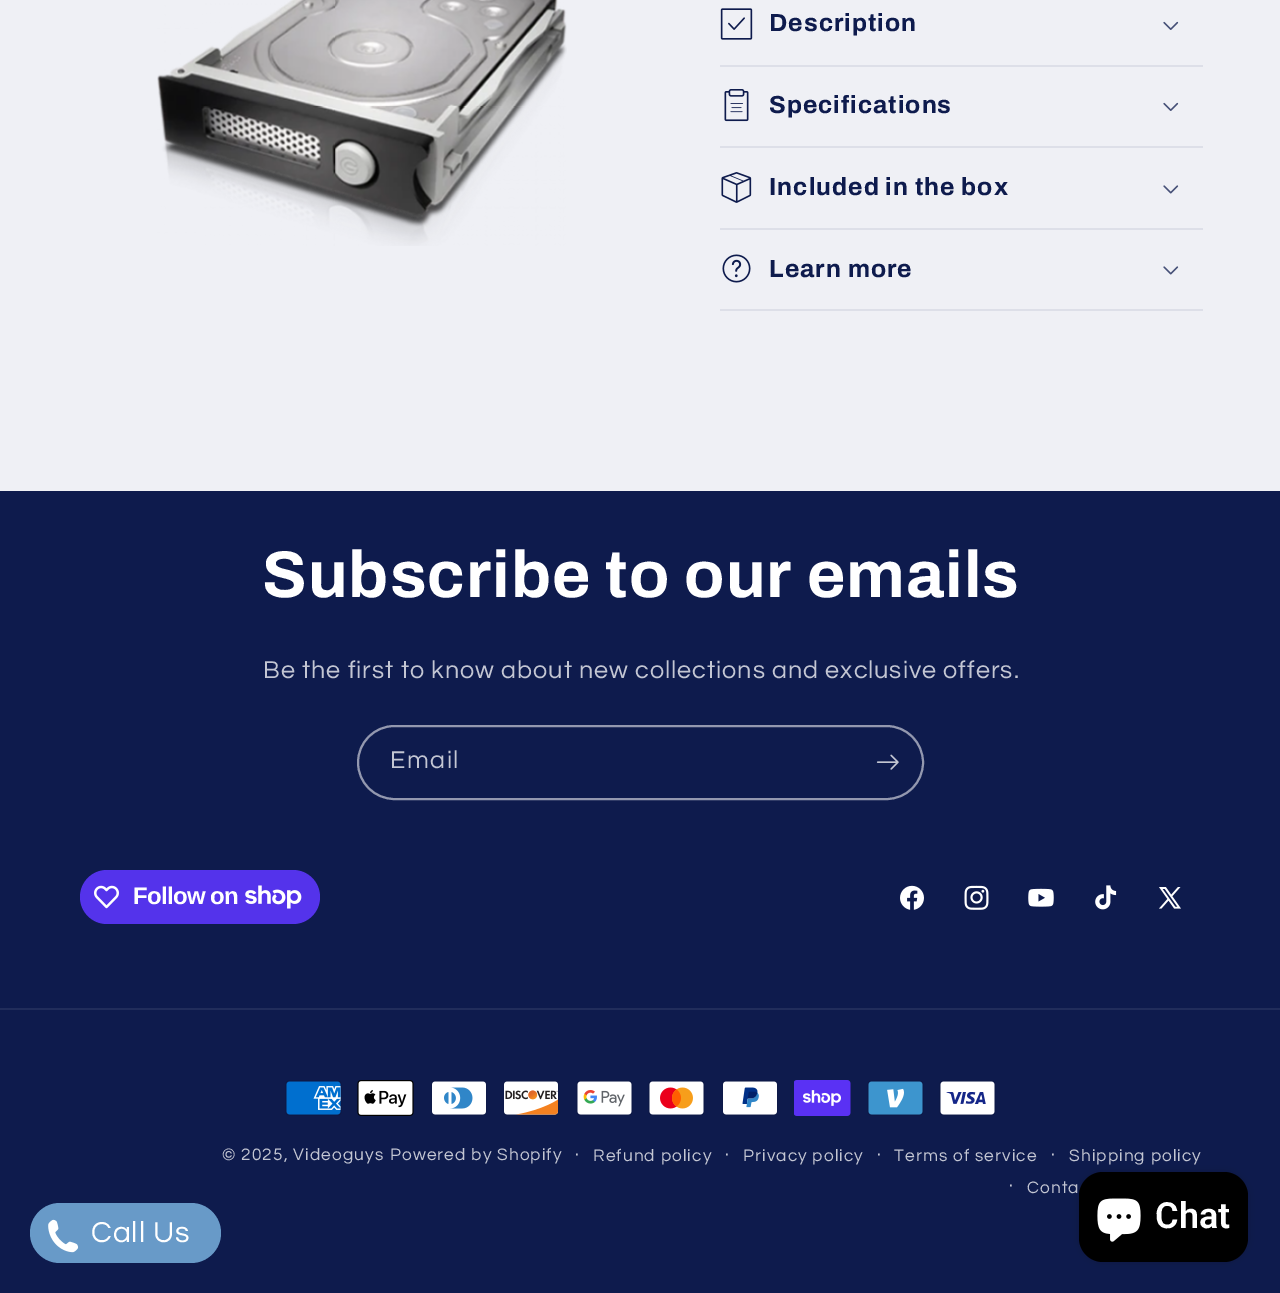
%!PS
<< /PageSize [1280 1293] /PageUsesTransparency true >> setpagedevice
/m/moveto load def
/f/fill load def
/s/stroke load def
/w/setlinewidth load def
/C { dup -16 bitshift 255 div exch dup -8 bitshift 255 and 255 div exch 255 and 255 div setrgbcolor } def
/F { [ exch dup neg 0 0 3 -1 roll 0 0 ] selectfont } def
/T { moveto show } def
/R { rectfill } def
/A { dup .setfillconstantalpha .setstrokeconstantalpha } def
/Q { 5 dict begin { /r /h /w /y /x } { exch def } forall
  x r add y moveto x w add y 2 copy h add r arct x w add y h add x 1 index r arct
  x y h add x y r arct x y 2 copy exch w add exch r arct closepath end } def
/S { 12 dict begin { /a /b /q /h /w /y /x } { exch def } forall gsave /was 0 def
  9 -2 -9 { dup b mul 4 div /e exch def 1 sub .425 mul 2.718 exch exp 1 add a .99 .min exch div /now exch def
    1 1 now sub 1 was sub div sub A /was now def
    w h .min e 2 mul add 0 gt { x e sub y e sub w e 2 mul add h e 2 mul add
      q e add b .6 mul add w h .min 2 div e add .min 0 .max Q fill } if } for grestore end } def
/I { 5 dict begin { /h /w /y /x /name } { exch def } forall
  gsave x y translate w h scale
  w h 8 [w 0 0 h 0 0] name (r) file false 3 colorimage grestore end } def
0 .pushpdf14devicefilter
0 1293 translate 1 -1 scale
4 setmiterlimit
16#EFF0F5 C
0 0 1280 1293 R
(1.rgb) 157 0 410 246 I
16#DDDFE8 C
720 65 483 2 R
(2.rgb) 720 8 33 32 I
/Archivo-Bold 24.75 F
16#0E1B4D C
769 31 m 1 0 (Description) ashow
(3.rgb) 1163 21 16 9 I
16#DDDFE8 C
720 146 483 2 R
(4.rgb) 724 89 25 33 I
16#0E1B4D C
769 113 m 1 0 (Specifications) ashow
(3.rgb) 1163 102 16 9 I
16#DDDFE8 C
720 228 483 2 R
(5.rgb) 721 172 31 31 I
16#0E1B4D C
769 195 m 1 0 (Included in the box) ashow
(6.rgb) 1163 185 16 9 I
16#DDDFE8 C
720 309 483 2 R
(7.rgb) 722 254 29 29 I
16#0E1B4D C
769 277 m 1 0 (Learn more) ashow
(6.rgb) 1163 266 16 9 I
0 491 1280 802 R
/Archivo-Bold 66 F
16#FFFFFF C
262 597 m 1 0 (Subscribe to our emails) ashow
/Questrial-Regular 25.2 F
16#C3C6D3 C
263 678 m .95 0 (Be the first to know about new collections and exclusive offers.) ashow
16#9398AF C
2 w
358 726 565 73 36.5 Q s
16#C3C6D3 C
390 768 m 1.5 0 (Email) ashow
(8.rgb) 876 754 23 16 I
16#5433EB C
80 870 240 54 27 Q f
(9.rgb) 94 885 25 24 I
/LiberationSans-Bold 24 F
16#FFFFFF C
133 904 m -.75 0 (Follow on) ashow
(10.rgb) 245 885 57 24 I
(11.rgb) 900 885 24 25 I
(12.rgb) 964 885 25 25 I
(13.rgb) 1028 888 26 19 I
(14.rgb) 1095 885 22 25 I
(15.rgb) 1159 887 22 22 I
16#212D5B C
0 1008 1280 2 R
(16.rgb) 285 1080 57 36 I
(17.rgb) 357 1080 57 36 I
(18.rgb) 431 1080 56 36 I
(19.rgb) 503 1080 56 36 I
(20.rgb) 576 1080 57 36 I
(21.rgb) 648 1080 57 36 I
(22.rgb) 722 1080 56 36 I
(23.rgb) 794 1080 57 36 I
(24.rgb) 867 1080 57 36 I
(25.rgb) 939 1080 57 36 I
/Questrial-Regular 17.25 F
16#C3C6D3 C
222 1160 m 1.1 0 (© 2025, Videoguys) ashow
390 1160 m 1.1 0 (Powered by Shopify) ashow
/Questrial-Regular 19 F
575 1160 m 1.1 0 (·) ashow
/Questrial-Regular 17.25 F
593 1161 m 1.1 0 (Refund policy) ashow
/Questrial-Regular 19 F
725 1160 m 1.1 0 (·) ashow
/Questrial-Regular 17.25 F
743 1161 m 1.1 0 (Privacy policy) ashow
/Questrial-Regular 19 F
877 1160 m 1.1 0 (·) ashow
/Questrial-Regular 17.25 F
894 1161 m 1.1 0 (Terms of service) ashow
/Questrial-Regular 19 F
1051 1160 m 1.1 0 (·) ashow
/Questrial-Regular 17.25 F
1069 1161 m 1.1 0 (Shipping policy) ashow
/Questrial-Regular 19 F
1009 1191 m 1.1 0 (·) ashow
/Questrial-Regular 17.25 F
1027 1193 m 1.1 0 (Conta) ashow
16#000000 C
1079 1172 169 90 24 4 .15 S
1079 1172 169 90 24 Q f
(26.rgb) 1097 1198 44 44 I
/Roboto-SemiBold 36 F
16#FFFFFF C
(Chat) 1155 1228 T
16#689AC8 C
30 1203 191 60 30 Q f
(27.rgb) 48 1219 31 34 I
/Questrial-Regular 30 F
16#FFFFFF C
91 1242 m .95 0 (Call Us) ashow
.poppdf14devicefilter showpage
